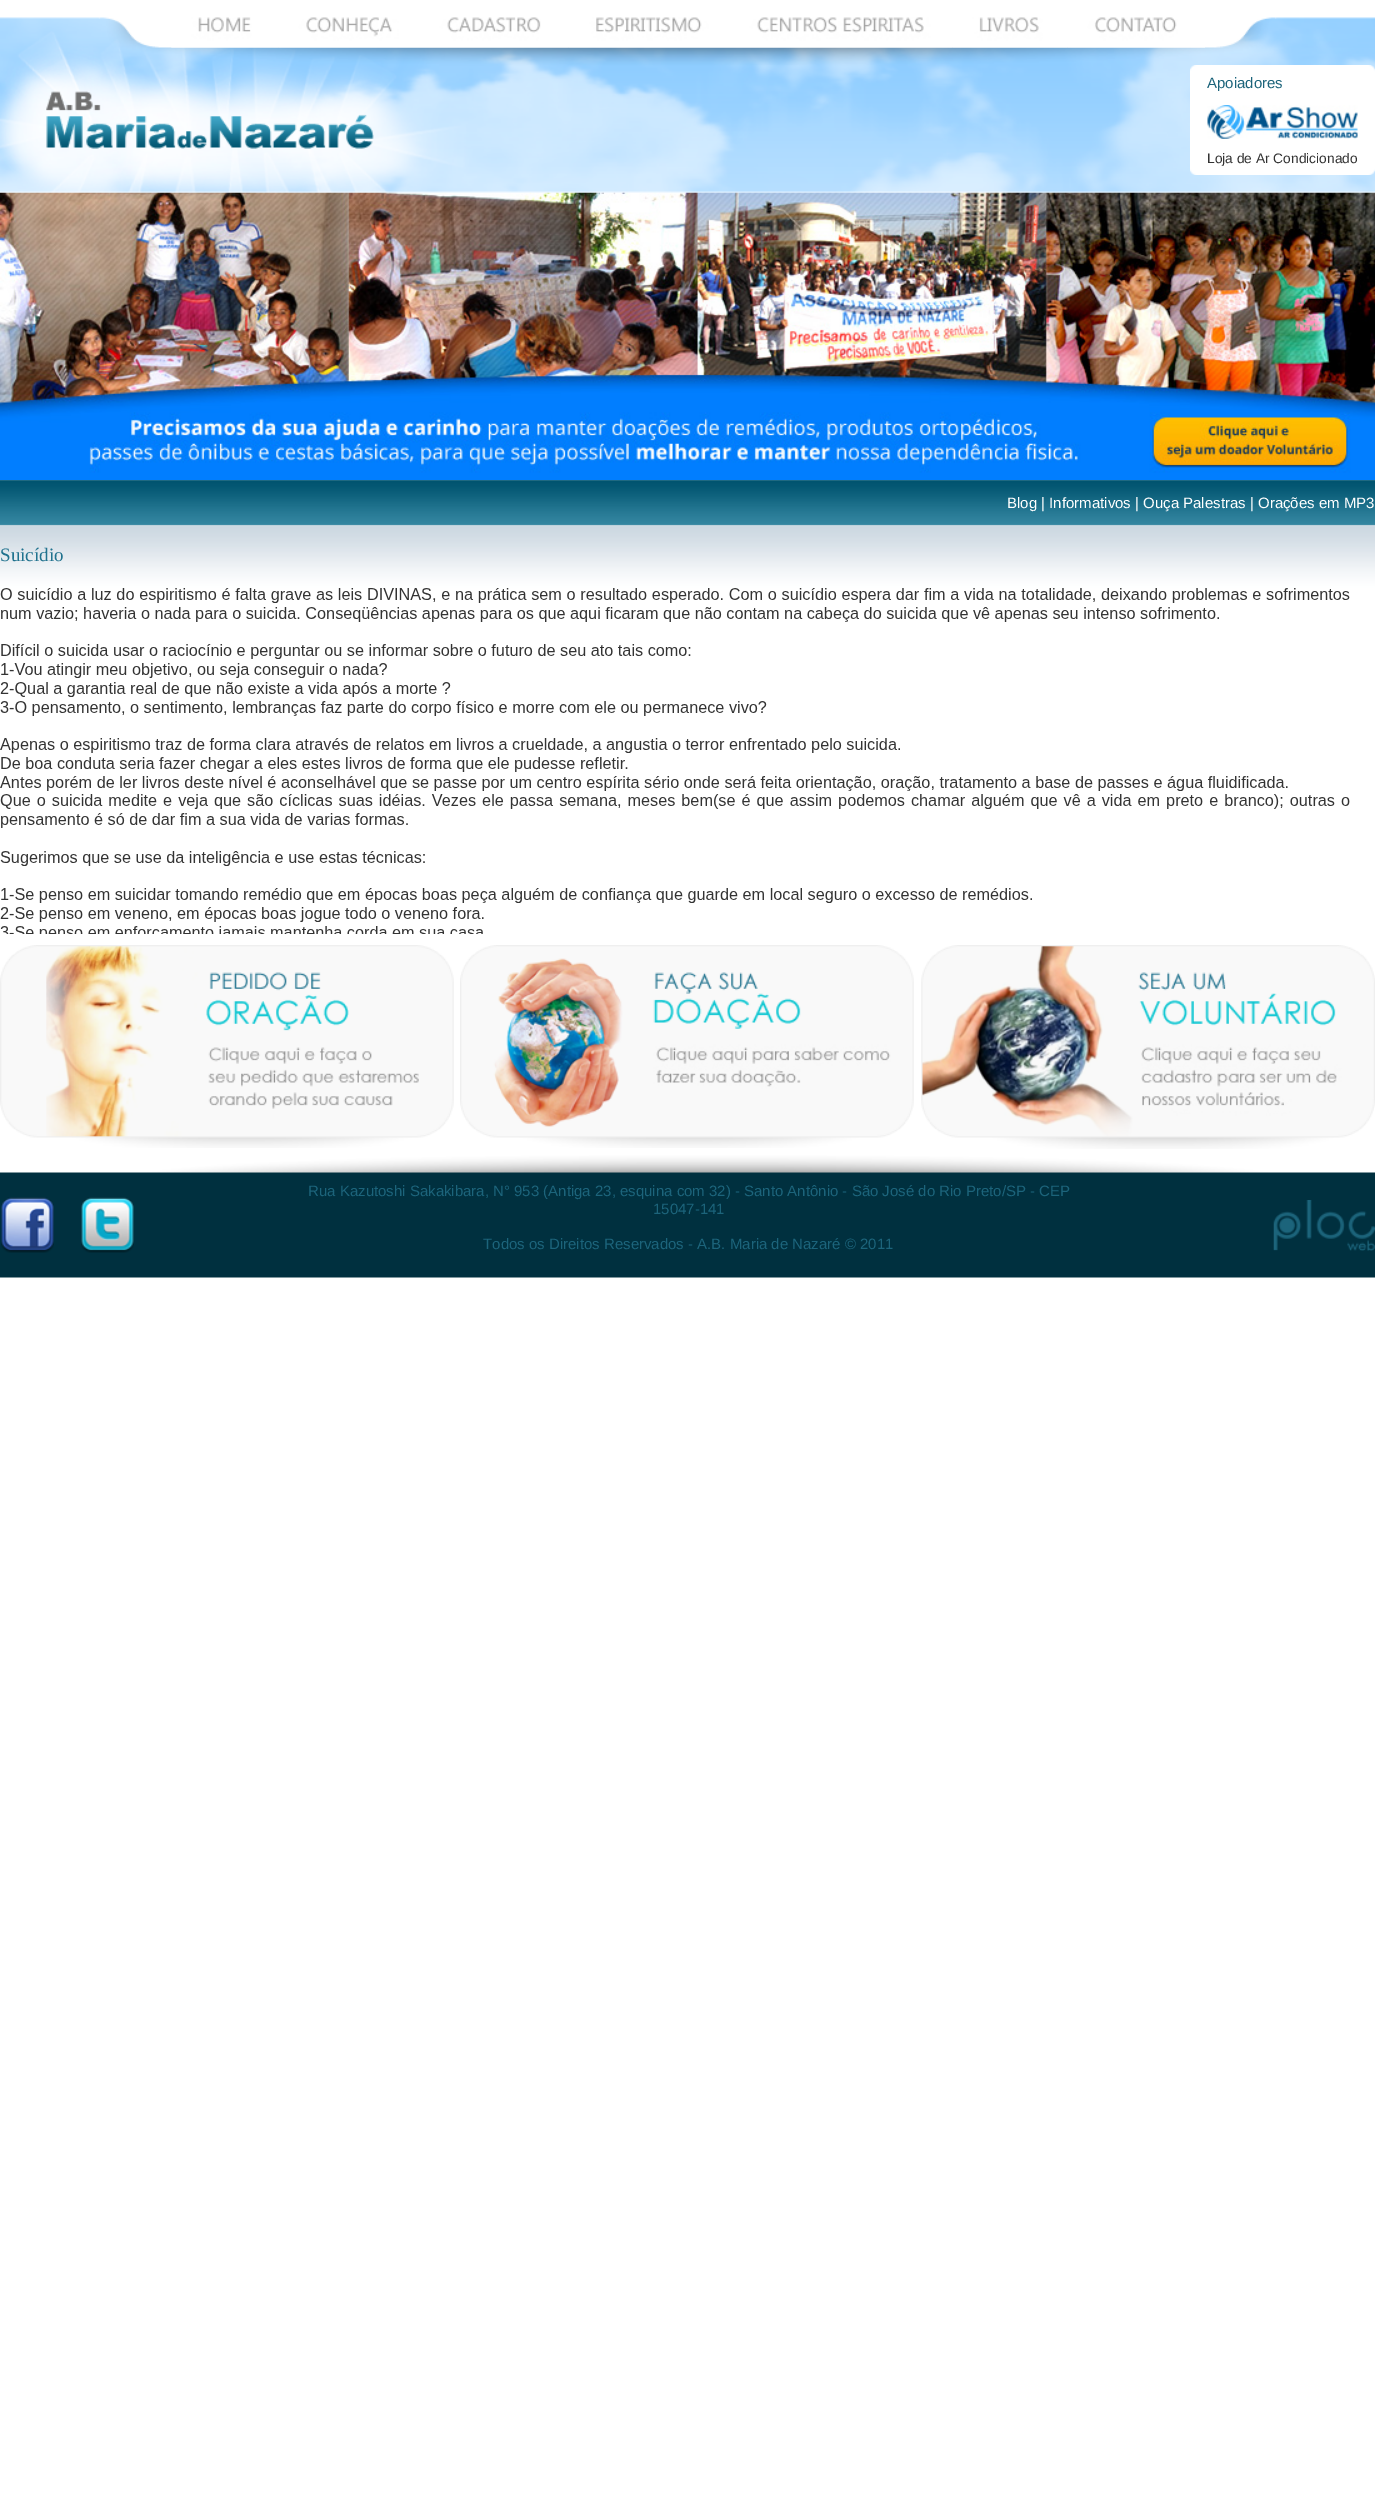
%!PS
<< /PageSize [1375 2506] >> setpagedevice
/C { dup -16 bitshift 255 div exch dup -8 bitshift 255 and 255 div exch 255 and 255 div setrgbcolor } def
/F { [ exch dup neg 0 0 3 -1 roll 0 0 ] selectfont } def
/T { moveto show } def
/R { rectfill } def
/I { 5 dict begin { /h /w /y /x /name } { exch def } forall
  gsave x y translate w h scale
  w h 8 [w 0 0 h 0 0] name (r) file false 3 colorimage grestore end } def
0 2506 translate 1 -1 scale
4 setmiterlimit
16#FFFFFF C
0 0 1375 2506 R
(1.rgb) 0 17 1375 1261 I
(2.rgb) 171 17 108 31 I
(3.rgb) 278 17 142 31 I
(4.rgb) 420 17 149 31 I
(5.rgb) 568 17 162 31 I
(6.rgb) 730 17 223 31 I
(7.rgb) 952 17 116 31 I
(8.rgb) 1067 17 138 31 I
(9.rgb) 46 91 328 58 I
(10.rgb) 1190 65 185 110 I
/LiberationSans-Regular 15 F
16#1C647B C
(Apoiadores) 1207 88 T
(11.rgb) 1207 105 151 34 I
/LiberationSans-Regular 13.75 F
16#333333 C
(Loja de Ar Condicionado) 1207 163 T
(12.rgb) 0 192 1375 288 I
/LiberationSans-Regular 15 F
16#FFFFFF C
(Blog | Informativos | Ouça Palestras | Orações em MP3) 1007 508 T
/LiberationSerif-Regular 19 F
16#20728E C
(Suicídio) 0 561 T
(13.rgb) 0 588 1350 346 I
(14.rgb) 0 945 454 203 I
(15.rgb) 460 945 454 203 I
(16.rgb) 921 945 454 204 I
(17.rgb) 1 1197 53 56 I
(18.rgb) 81 1197 53 56 I
/LiberationSans-Regular 15 F
16#1C647B C
(Rua Kazutoshi Sakakibara, N° 953 \(Antiga 23, esquina com 32\) - Santo Antônio - São José do Rio Preto/SP - CEP) 308 1196 T
(15047-141) 653 1214 T
(Todos os Direitos Reservados - A.B. Maria de Nazaré © 2011) 483 1249 T
(19.rgb) 1273 1200 102 51 I
showpage
